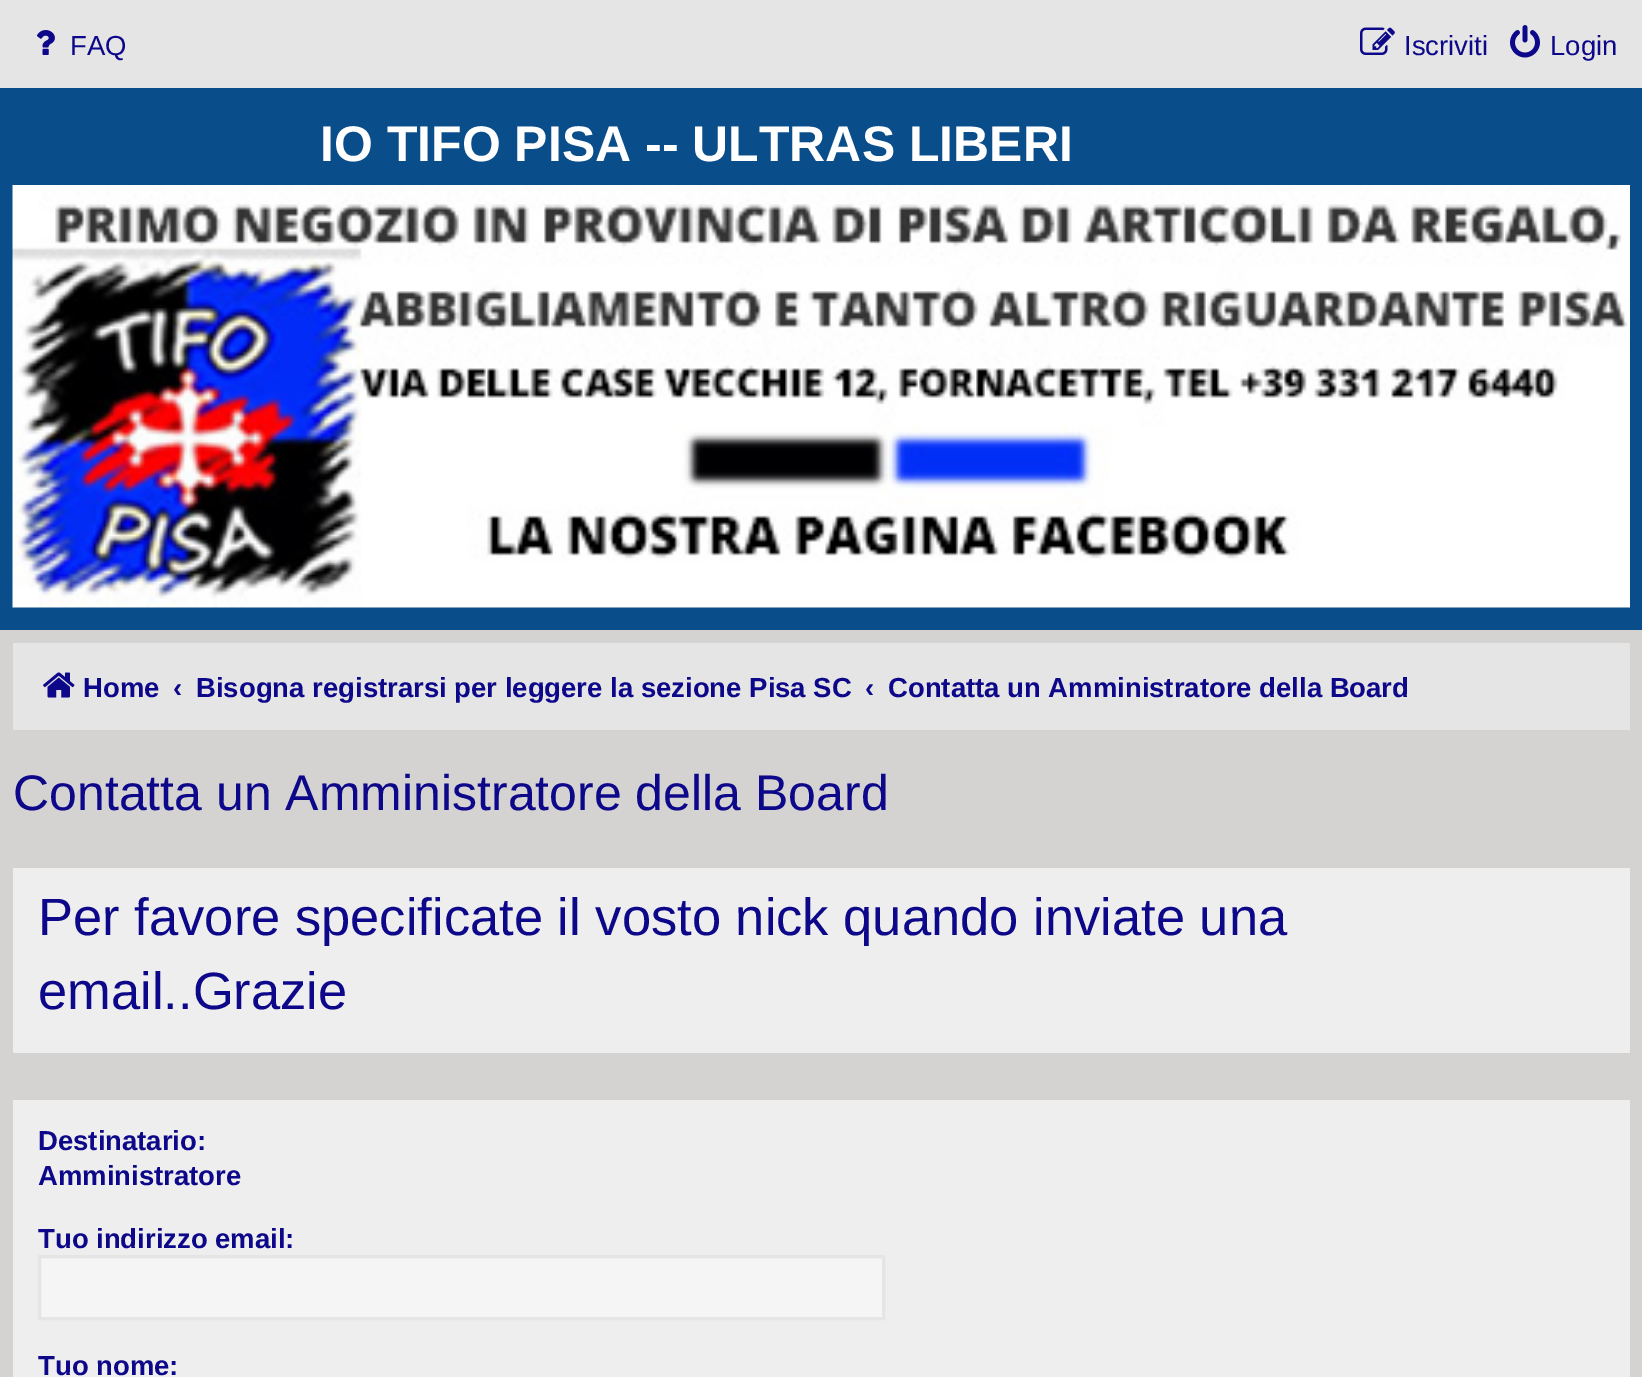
%!PS
<< /PageSize [1642 1377] >> setpagedevice
/m/moveto load def
/l/rlineto load def
/z/closepath load def
/f/fill load def
/s/stroke load def
/q/gsave load def
/Q_/grestore load def
/w/setlinewidth load def
/C { dup -16 bitshift 255 div exch dup -8 bitshift 255 and 255 div exch 255 and 255 div setrgbcolor } def
/F { [ exch dup neg 0 0 3 -1 roll 0 0 ] selectfont } def
/T { moveto show } def
/R { rectfill } def
/I { 5 dict begin { /h /w /y /x /name } { exch def } forall
  gsave x y translate w h scale
  w h 8 [w 0 0 h 0 0] name (r) file false 3 colorimage grestore end } def
0 1377 translate 1 -1 scale
4 setmiterlimit
16#E5E5E5 C
0 0 1642 1377 R
(1.rgb) 36 30 19 25 I
/LiberationSans-Regular 27.5 F
16#0D078A C
(FAQ) 70 55 T
(2.rgb) 1360 27 35 28 I
(Iscriviti) 1404 55 T
(3.rgb) 1510 25 30 33 I
(Login) 1550 55 T
16#094D8A C
0 88 1642 542 R
/LiberationSans-Bold 50 F
16#FFFFFF C
(IO TIFO PISA -- ULTRAS LIBERI) 320 161 T
(4.rgb) 12 185 1618 423 I
16#D5D2D2 C
0 630 1642 747 R
16#E5E5E5 C
13 643 1617 87 R
(5.rgb) 43 672 32 26 I
/LiberationSans-Bold 27.5 F
16#0D078A C
(Home) 83 697 T
(‹) 173 697 T
(Bisogna registrarsi per leggere la sezione Pisa SC) 196 697 T
(‹) 865 697 T
(Contatta un Amministratore della Board) 888 697 T
/LiberationSans-Regular 50 F
(Contatta un Amministratore della Board) 13 810 T
16#EEEEEE C
13 868 1617 185 R
/LiberationSans-Regular 52.5 F
16#0D078A C
(Per favore specificate il vosto nick quando inviate una) 38 935 T
(email..Grazie) 38 1009 T
16#EEEEEE C
13 1100 1617 277 R
/LiberationSans-Bold 27.5 F
16#0D078A C
(Destinatario:) 38 1150 T
(Amministratore) 38 1185 T
q
38 1210 1567 128 rectclip
(Tuo indirizzo email:) 38 1248 T
Q_
16#F5F5F5 C
39.5 1256.5 m 844 0 l 0 62 l -844 0 l z q f Q_
16#E5E5E5 C
3 w
s
q
38 1338 1567 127 rectclip
16#0D078A C
(Tuo nome:) 38 1375 T
Q_
showpage
